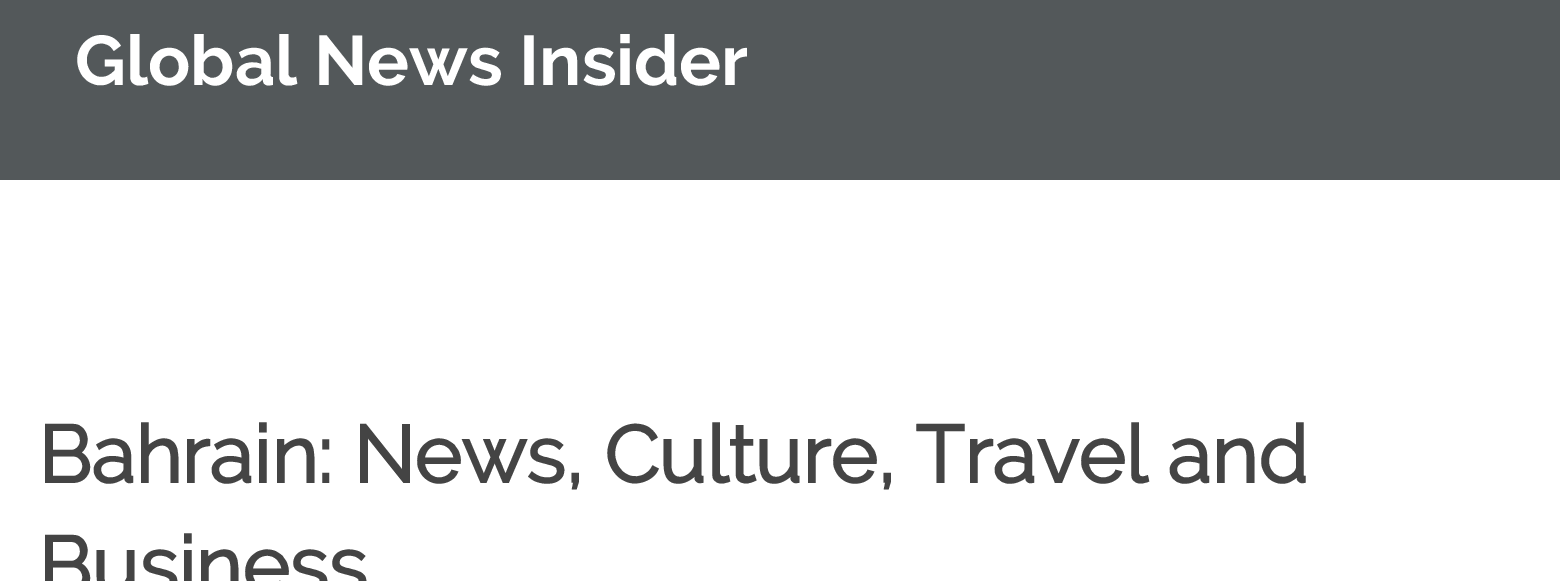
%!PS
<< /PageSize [1560 581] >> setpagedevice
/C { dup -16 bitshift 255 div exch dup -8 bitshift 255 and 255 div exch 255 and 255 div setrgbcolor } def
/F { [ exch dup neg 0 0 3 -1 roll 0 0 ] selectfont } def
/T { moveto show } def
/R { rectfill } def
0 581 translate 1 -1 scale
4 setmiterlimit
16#FFFFFF C
0 0 1560 581 R
16#53585A C
0 0 1560 180 R
/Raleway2-Bold 70 F
16#FFFFFF C
(Global News Insider) 75 85 T
/Raleway-Bold 80 F
16#444444 C
(Bahrain: News, Culture, Travel and) 38 483 T
(Business) 38 594 T
showpage
